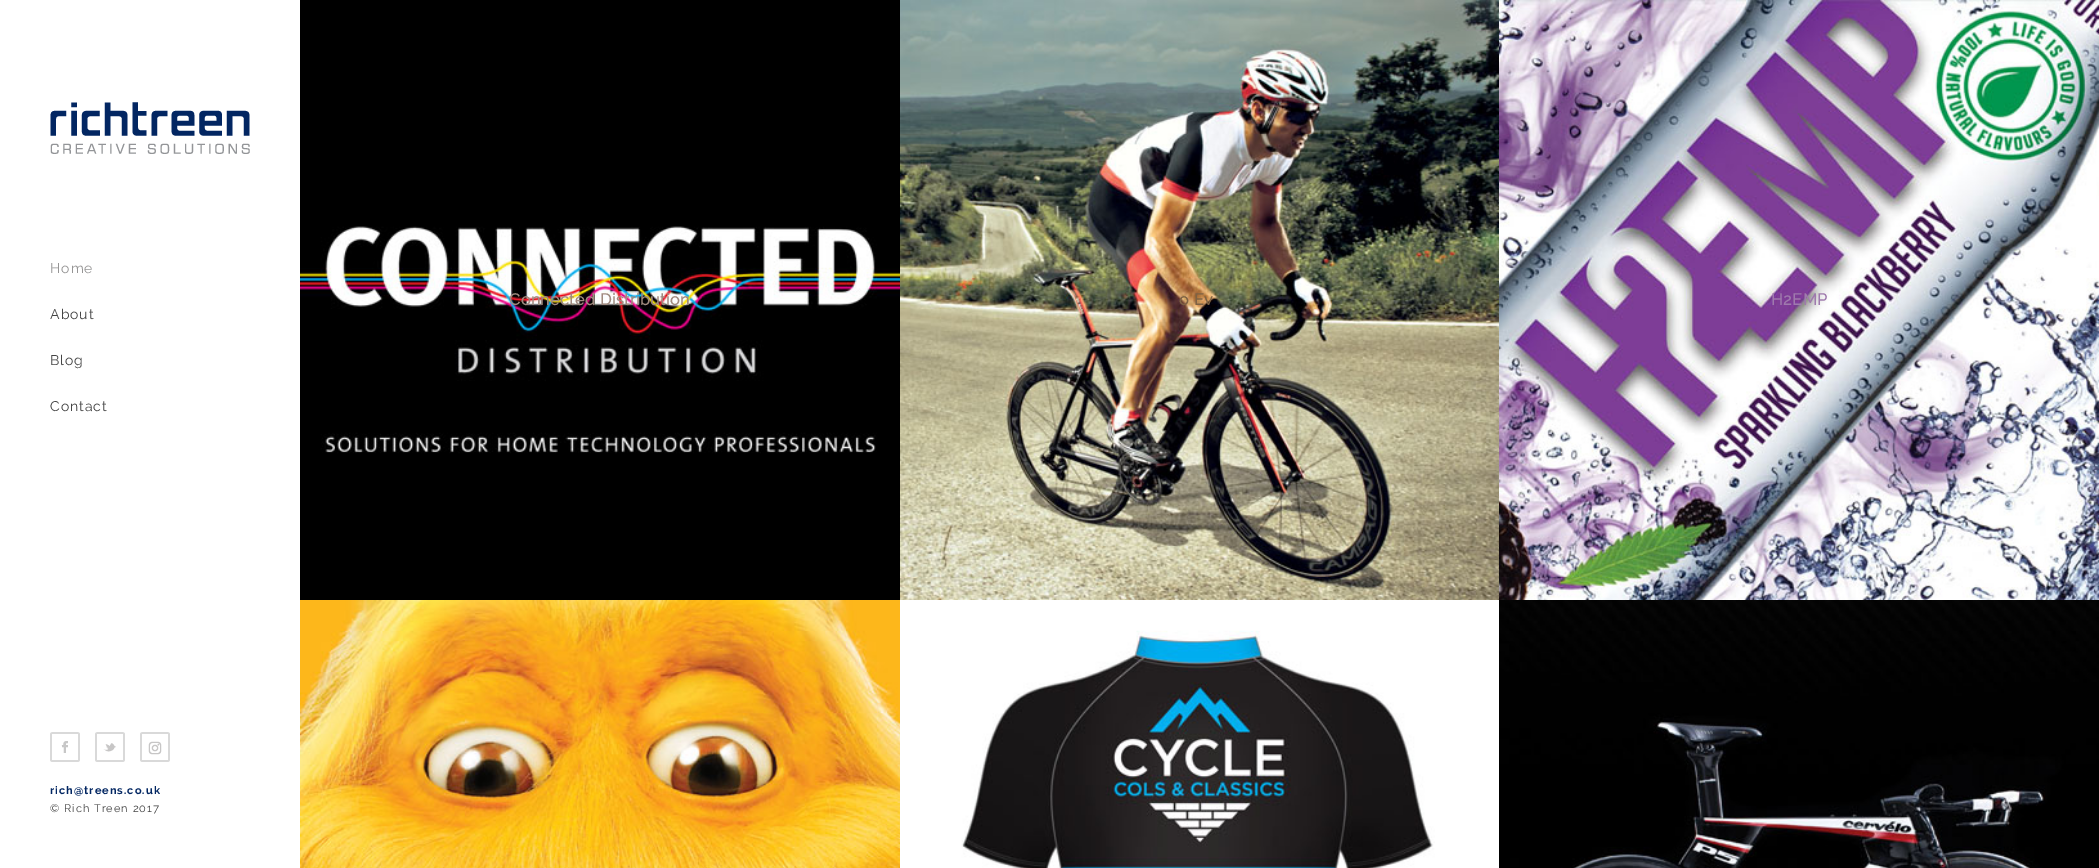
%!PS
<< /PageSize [2099 868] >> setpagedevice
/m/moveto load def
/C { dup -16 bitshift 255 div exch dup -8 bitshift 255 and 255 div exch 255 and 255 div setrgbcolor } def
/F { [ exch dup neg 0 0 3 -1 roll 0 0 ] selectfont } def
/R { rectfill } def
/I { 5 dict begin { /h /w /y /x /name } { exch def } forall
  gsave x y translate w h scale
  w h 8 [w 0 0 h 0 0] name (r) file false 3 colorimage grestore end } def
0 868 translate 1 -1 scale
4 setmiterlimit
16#FFFFFF C
0 0 2099 868 R
(1.rgb) 50 102 200 52 I
/Raleway-Regular 14 F
16#969595 C
50 273 m 1 0 (Home) ashow
16#454545 C
50 319 m 1 0 (About) ashow
50 365 m 1 0 (Blog) ashow
50 411 m 1 0 (Contact) ashow
(2.rgb) 50 732 30 30 I
(3.rgb) 95 732 30 30 I
(4.rgb) 140 732 30 30 I
/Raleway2-Bold 11 F
16#022662 C
50 794 m 1 0 (rich@treens.co.uk) ashow
/Raleway-Regular 11 F
16#454545 C
50 812 m 1 0 (© Rich Treen 2017) ashow
(5.rgb) 300 0 600 600 I
/Raleway-Bold 16 F
16#A08A7F C
509 305 m .5 0 (Connected Distribution) ashow
(6.rgb) 900 0 599 600 I
16#7D6244 C
1179 305 m .5 0 (o Ev) ashow
(7.rgb) 1499 0 600 600 I
16#9F7AAD C
1771 305 m .5 0 (H2EMP) ashow
(8.rgb) 300 600 600 268 I
(9.rgb) 900 600 599 268 I
(10.rgb) 1499 600 600 268 I
showpage
